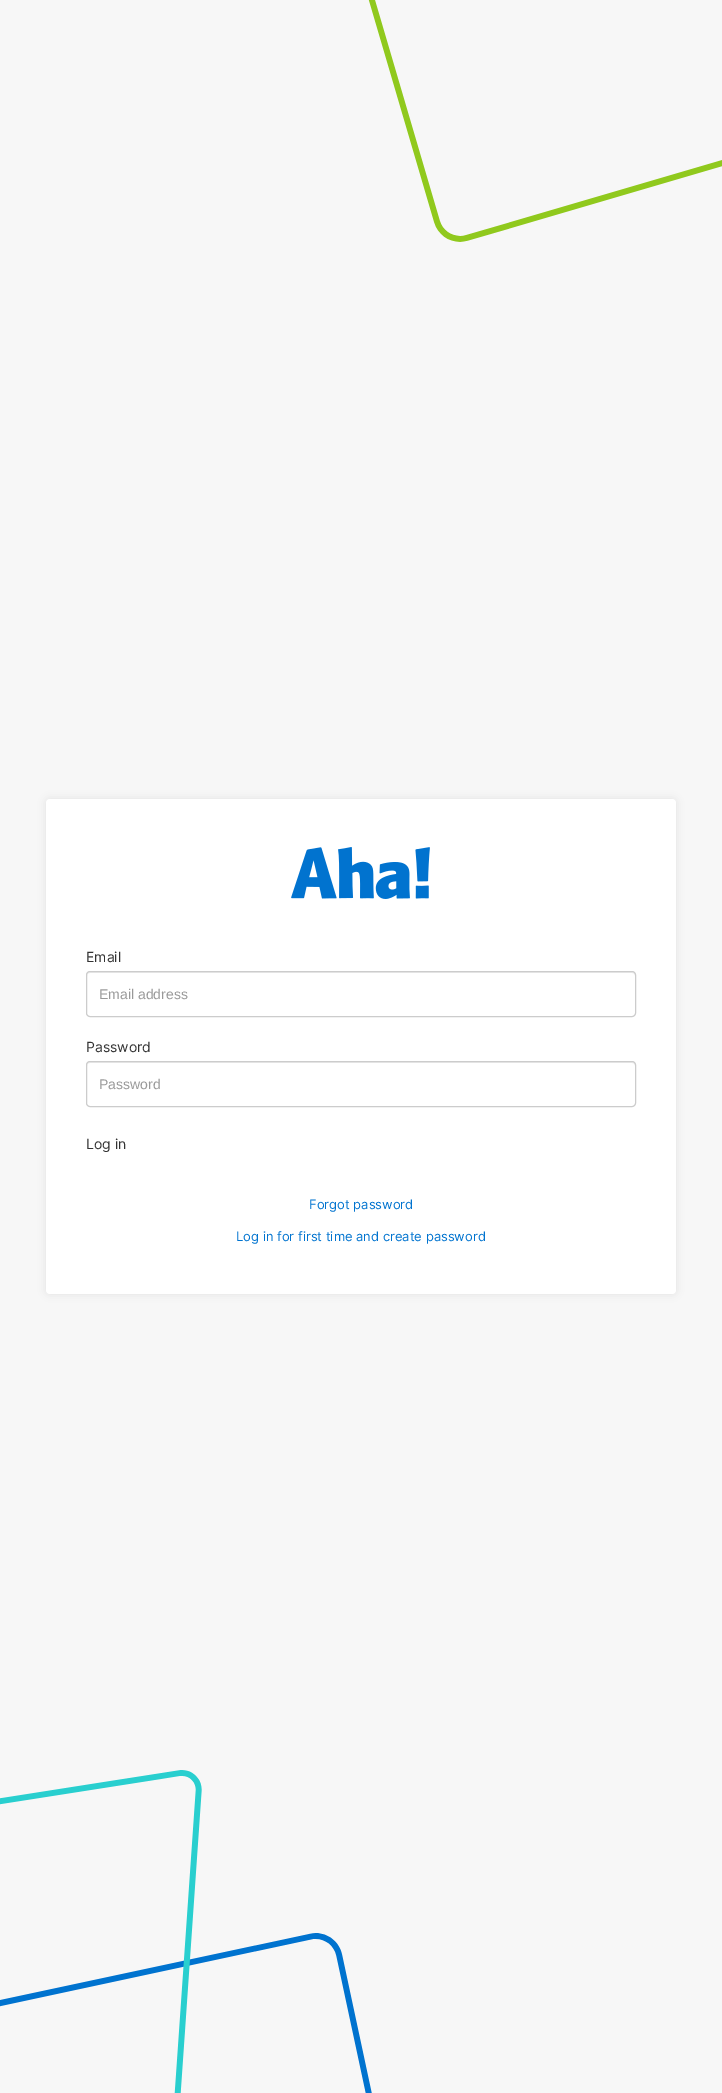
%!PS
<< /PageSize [722 2093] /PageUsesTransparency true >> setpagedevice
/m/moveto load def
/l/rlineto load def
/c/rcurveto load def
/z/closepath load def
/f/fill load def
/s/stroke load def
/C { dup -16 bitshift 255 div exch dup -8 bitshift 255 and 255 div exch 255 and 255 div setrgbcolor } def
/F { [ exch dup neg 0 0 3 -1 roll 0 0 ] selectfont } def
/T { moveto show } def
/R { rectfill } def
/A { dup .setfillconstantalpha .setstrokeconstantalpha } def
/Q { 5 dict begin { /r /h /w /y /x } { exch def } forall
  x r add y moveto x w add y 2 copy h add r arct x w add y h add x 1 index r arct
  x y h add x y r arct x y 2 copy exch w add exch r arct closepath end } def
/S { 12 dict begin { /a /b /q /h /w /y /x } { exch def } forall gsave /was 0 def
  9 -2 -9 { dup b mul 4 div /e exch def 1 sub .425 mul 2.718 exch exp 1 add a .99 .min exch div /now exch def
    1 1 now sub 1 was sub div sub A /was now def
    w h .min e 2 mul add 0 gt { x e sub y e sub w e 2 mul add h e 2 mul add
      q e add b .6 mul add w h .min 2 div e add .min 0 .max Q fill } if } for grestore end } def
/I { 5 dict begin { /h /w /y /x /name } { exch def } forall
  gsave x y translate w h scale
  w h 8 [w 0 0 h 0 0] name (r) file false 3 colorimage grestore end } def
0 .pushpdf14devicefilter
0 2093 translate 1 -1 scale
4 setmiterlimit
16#F7F7F7 C
0 0 722 2093 R
(1.rgb) 0 0 722 2093 I
16#000000 C
46 799 630 495 4 4 .08 S
16#FFFFFF C
46 799 630 495 4 Q f
(2.rgb) 291 847 139 52 I
/Inter-Regular 14 F
16#333333 C
(Email) 86 962 T
16#ECECEC C
90 973 m 542 0 l 2 0 3 1 3 3 c 0 -1 l 0 -2 -1 -3 -3 -3 c -542 0 l -2 0 -3 1 -3 3 c 0 1 l 0 -2 1 -3 3 -3 c z f
16#CCCCCC C
86.5 971.5 549 45 3.5 Q s
/LiberationSans-Regular 14 F
16#999999 C
(Email address) 99 999 T
/Inter-Regular 14 F
16#333333 C
(Password) 86 1052 T
16#ECECEC C
90 1063 m 542 0 l 2 0 3 1 3 3 c 0 -1 l 0 -2 -1 -3 -3 -3 c -542 0 l -2 0 -3 1 -3 3 c 0 1 l 0 -2 1 -3 3 -3 c z f
16#CCCCCC C
86.5 1061.5 549 45 3.5 Q s
/LiberationSans-Regular 14 F
16#999999 C
(Password) 99 1089 T
/Inter-Regular 14 F
16#333333 C
(Log in) 86 1149 T
/Inter-Regular 13 F
16#0073CF C
(Forgot password) 309 1209 T
(Log in for first time and create password) 236 1241 T
.poppdf14devicefilter showpage
